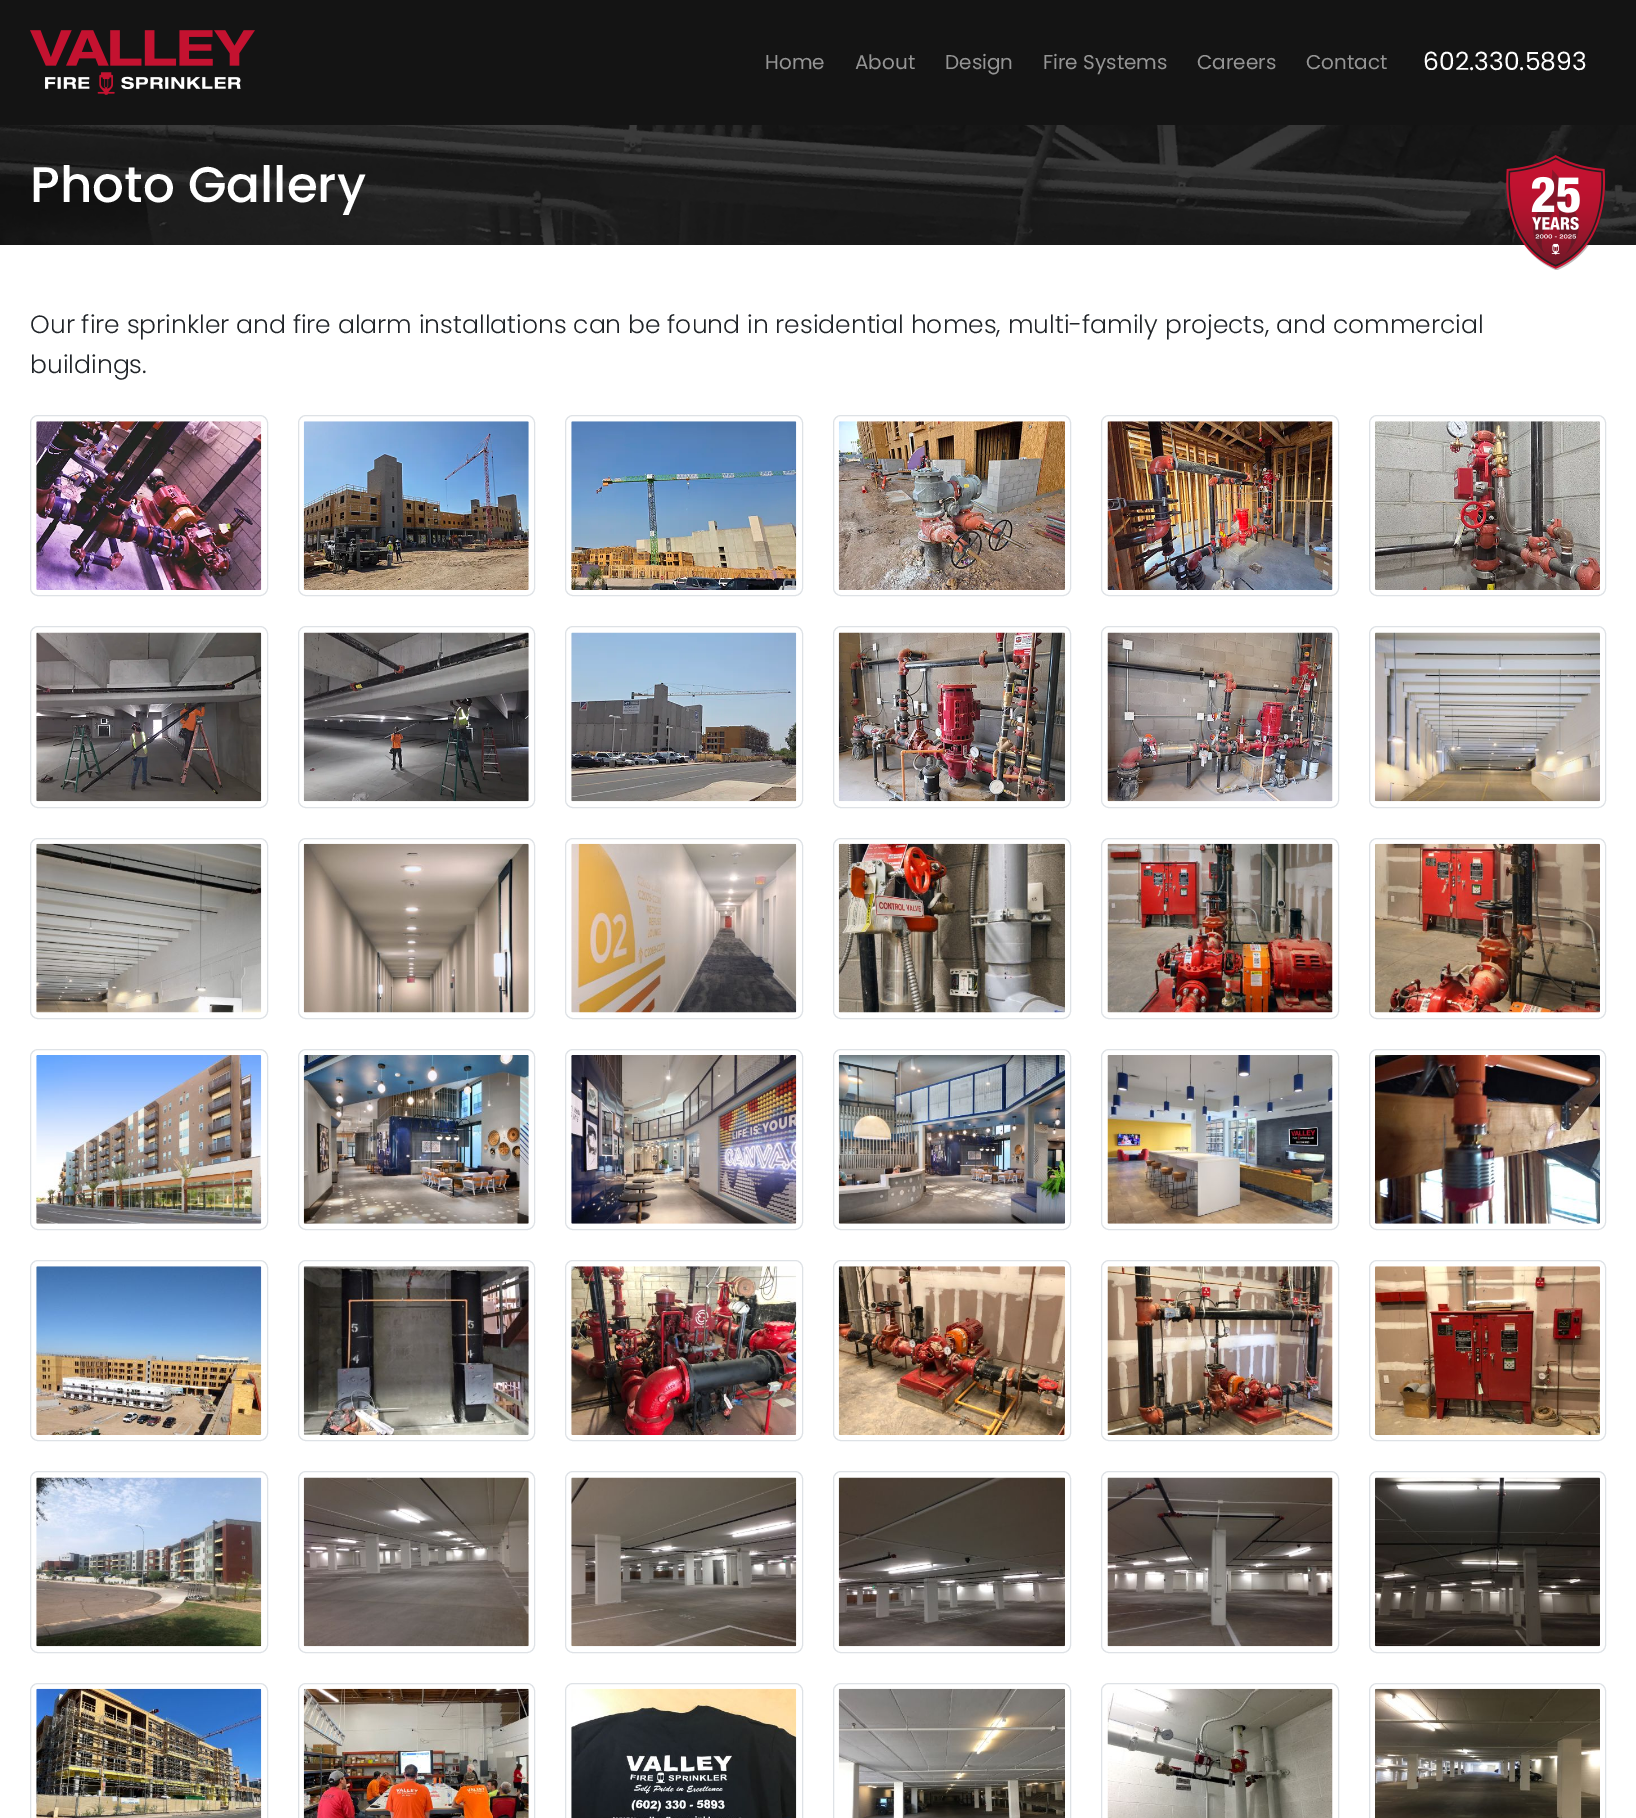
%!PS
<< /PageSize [1636 1818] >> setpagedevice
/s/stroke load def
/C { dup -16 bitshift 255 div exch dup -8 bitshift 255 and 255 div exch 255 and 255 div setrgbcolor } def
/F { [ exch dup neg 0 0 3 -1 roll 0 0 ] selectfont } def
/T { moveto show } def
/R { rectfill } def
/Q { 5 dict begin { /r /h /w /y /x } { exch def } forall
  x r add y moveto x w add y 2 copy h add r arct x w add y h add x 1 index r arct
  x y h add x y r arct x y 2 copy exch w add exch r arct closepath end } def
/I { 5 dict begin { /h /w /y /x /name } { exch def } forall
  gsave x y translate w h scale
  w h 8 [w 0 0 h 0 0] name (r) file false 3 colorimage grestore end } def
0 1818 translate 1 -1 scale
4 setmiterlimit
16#FFFFFF C
0 0 1636 1818 R
16#141414 C
0 0 1636 245 R
(1.rgb) 30 30 225 65 I
/Poppins-Regular 20 F
16#959595 C
(Home) 765 69 T
(About) 855 69 T
(Design) 945 69 T
(Fire Systems) 1043 69 T
(Careers) 1197 69 T
(Contact) 1306 69 T
/Poppins-Regular 25 F
16#FFFFFF C
(602.330.5893) 1423 70 T
(2.rgb) 0 125 1636 120 I
/Poppins-Medium 50 F
(Photo Gallery) 30 202 T
(3.rgb) 1506 155 100 115 I
/Poppins-Light 25 F
16#212529 C
(Our fire sprinkler and fire alarm installations can be found in residential homes, multi-family projects, and commercial) 30 333 T
(buildings.) 30 373 T
16#DEE2E6 C
30.5 415.5 237 180 7.5 Q s
(4.rgb) 36 421 226 169 I
298.5 415.5 236 180 7.5 Q s
(5.rgb) 303 421 226 169 I
565.5 415.5 237 180 7.5 Q s
(6.rgb) 571 421 226 169 I
833.5 415.5 237 180 7.5 Q s
(7.rgb) 838 421 227 169 I
1101.5 415.5 237 180 7.5 Q s
(8.rgb) 1107 421 226 169 I
1369.5 415.5 236 180 7.5 Q s
(9.rgb) 1375 421 225 169 I
30.5 626.5 237 181 7.5 Q s
(10.rgb) 36 632 226 170 I
298.5 626.5 236 181 7.5 Q s
(11.rgb) 303 632 226 170 I
565.5 626.5 237 181 7.5 Q s
(12.rgb) 571 632 226 170 I
833.5 626.5 237 181 7.5 Q s
(13.rgb) 838 632 227 170 I
1101.5 626.5 237 181 7.5 Q s
(14.rgb) 1107 632 226 170 I
1369.5 626.5 236 181 7.5 Q s
(15.rgb) 1375 632 225 170 I
30.5 838.5 237 180 7.5 Q s
(16.rgb) 36 843 226 170 I
298.5 838.5 236 180 7.5 Q s
(17.rgb) 303 843 226 170 I
565.5 838.5 237 180 7.5 Q s
(18.rgb) 571 843 226 170 I
833.5 838.5 237 180 7.5 Q s
(19.rgb) 838 843 227 170 I
1101.5 838.5 237 180 7.5 Q s
(20.rgb) 1107 843 226 170 I
1369.5 838.5 236 180 7.5 Q s
(21.rgb) 1375 843 225 170 I
30.5 1049.5 237 180 7.5 Q s
(22.rgb) 36 1055 226 169 I
298.5 1049.5 236 180 7.5 Q s
(23.rgb) 303 1055 226 169 I
565.5 1049.5 237 180 7.5 Q s
(24.rgb) 571 1055 226 169 I
833.5 1049.5 237 180 7.5 Q s
(25.rgb) 838 1055 227 169 I
1101.5 1049.5 237 180 7.5 Q s
(26.rgb) 1107 1055 226 169 I
1369.5 1049.5 236 180 7.5 Q s
(27.rgb) 1375 1055 225 169 I
30.5 1260.5 237 180 7.5 Q s
(28.rgb) 36 1266 226 169 I
298.5 1260.5 236 180 7.5 Q s
(29.rgb) 303 1266 226 169 I
565.5 1260.5 237 180 7.5 Q s
(30.rgb) 571 1266 226 169 I
833.5 1260.5 237 180 7.5 Q s
(31.rgb) 838 1266 227 169 I
1101.5 1260.5 237 180 7.5 Q s
(32.rgb) 1107 1266 226 169 I
1369.5 1260.5 236 180 7.5 Q s
(33.rgb) 1375 1266 225 169 I
30.5 1471.5 237 181 7.5 Q s
(34.rgb) 36 1477 226 170 I
298.5 1471.5 236 181 7.5 Q s
(35.rgb) 303 1477 226 170 I
565.5 1471.5 237 181 7.5 Q s
(36.rgb) 571 1477 226 170 I
833.5 1471.5 237 181 7.5 Q s
(37.rgb) 838 1477 227 170 I
1101.5 1471.5 237 181 7.5 Q s
(38.rgb) 1107 1477 226 170 I
1369.5 1471.5 236 181 7.5 Q s
(39.rgb) 1375 1477 225 170 I
30.5 1683.5 237 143 7.5 Q s
(40.rgb) 36 1688 226 130 I
298.5 1683.5 236 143 7.5 Q s
(41.rgb) 303 1688 226 130 I
565.5 1683.5 237 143 7.5 Q s
(42.rgb) 571 1688 226 130 I
833.5 1683.5 237 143 7.5 Q s
(43.rgb) 838 1688 227 130 I
1101.5 1683.5 237 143 7.5 Q s
(44.rgb) 1107 1688 226 130 I
1369.5 1683.5 236 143 7.5 Q s
(45.rgb) 1375 1688 225 130 I
showpage
